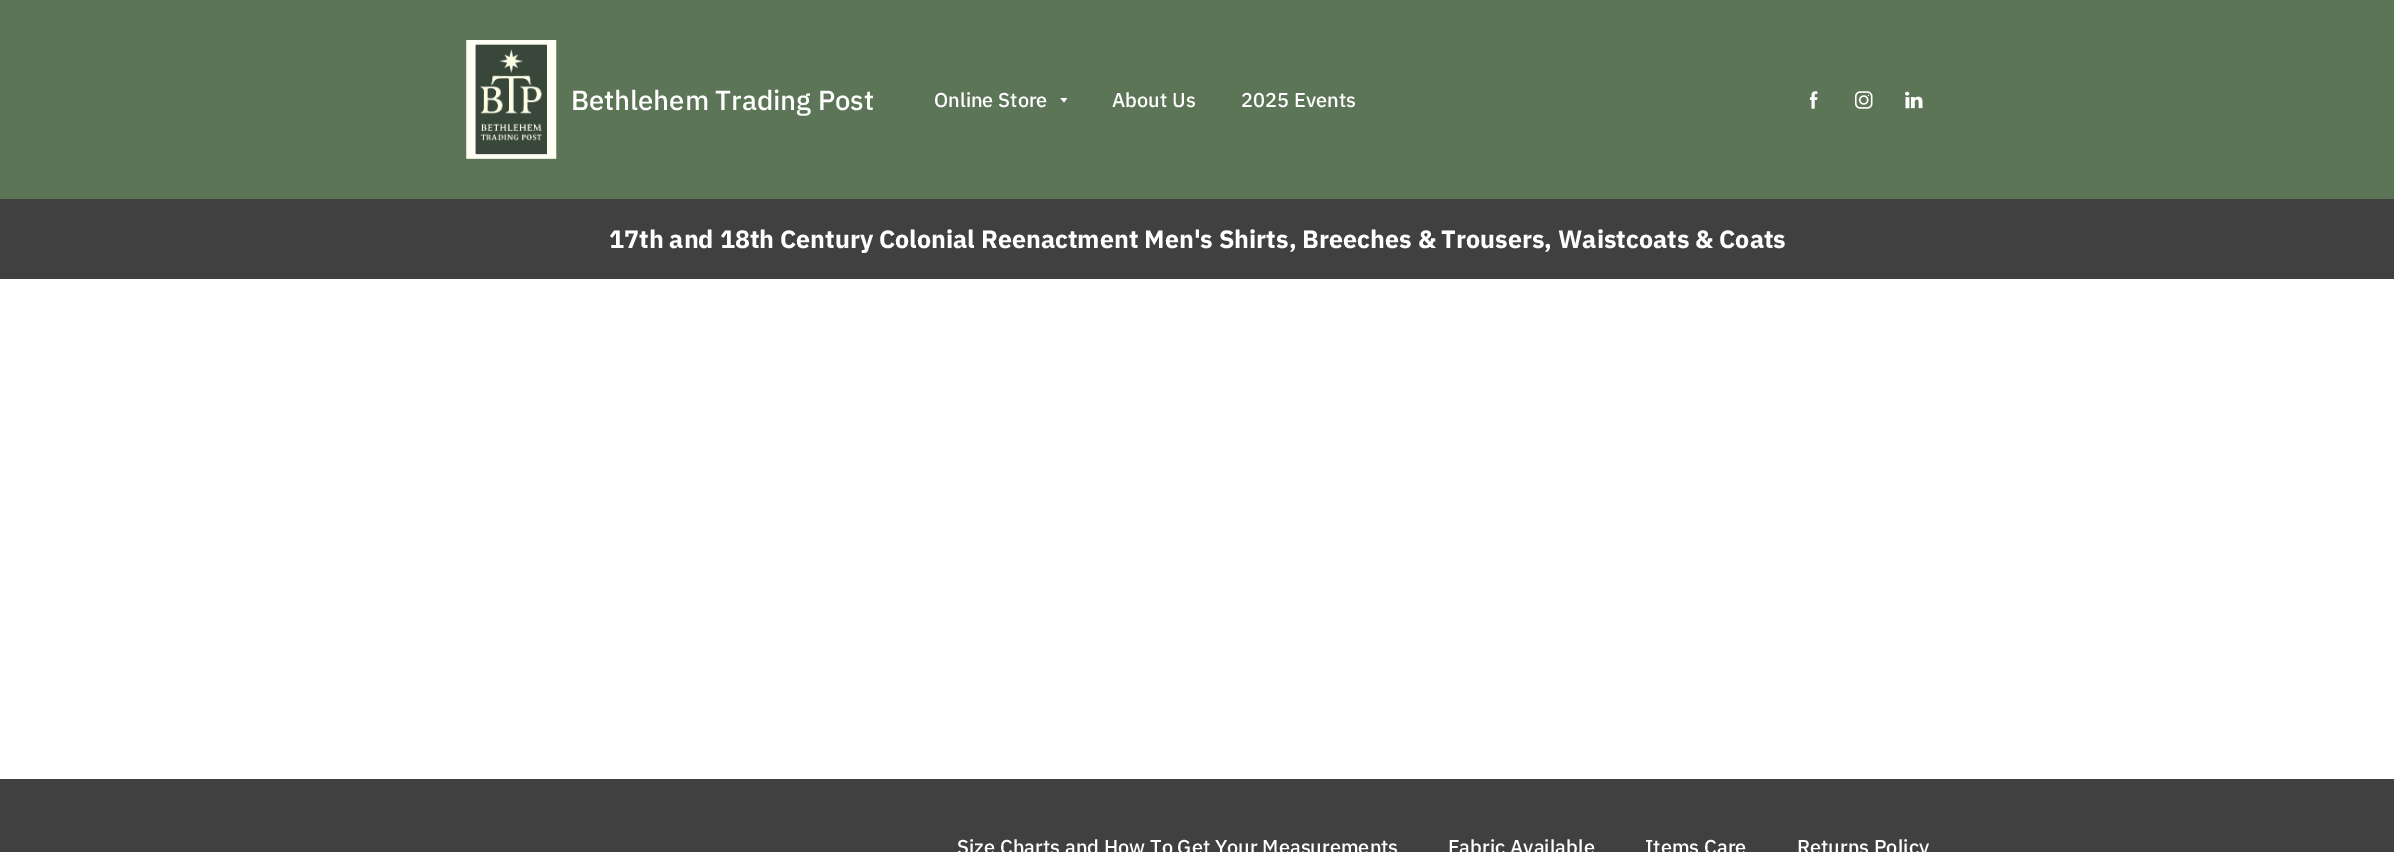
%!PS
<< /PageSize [2394 852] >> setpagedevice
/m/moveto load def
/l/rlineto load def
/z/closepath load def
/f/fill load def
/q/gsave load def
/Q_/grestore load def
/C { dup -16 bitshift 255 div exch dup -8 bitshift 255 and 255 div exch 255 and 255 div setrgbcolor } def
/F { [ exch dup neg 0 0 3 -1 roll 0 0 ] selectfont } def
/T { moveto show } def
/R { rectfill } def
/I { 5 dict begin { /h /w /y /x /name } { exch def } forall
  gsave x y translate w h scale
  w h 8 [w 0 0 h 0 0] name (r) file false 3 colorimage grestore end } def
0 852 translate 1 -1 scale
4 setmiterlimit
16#FFFFFF C
0 0 2394 852 R
16#5D7557 C
0 0 2394 199 R
(1.rgb) 466 40 91 119 I
/IBMPlexSans-Medium 27.5 F
16#FFFFFF C
(Bethlehem Trading Post) 571 110 T
/IBMPlexSans-Medium 20 F
(Online Store) 934 107 T
q
1060 98 8 5 rectclip
1060 97.5 m 7.5 0 l -3.5 5 l z f
Q_
(About Us) 1112 107 T
(2025 Events) 1241 107 T
(2.rgb) 1809 91 9 18 I
(3.rgb) 1855 91 18 18 I
(4.rgb) 1905 91 18 18 I
16#404040 C
0 199 2394 80 R
/IBMPlexSans-Bold 25 F
16#FFFFFF C
(17th and 18th Century Colonial Reenactment Men's Shirts, Breeches & Trousers, Waistcoats & Coats) 609 248 T
16#404040 C
0 779 2394 73 R
/IBMPlexSans-Medium 20 F
16#FFFFFF C
(Size Charts and How To Get Your Measurements) 957 854 T
(Fabric Available) 1448 854 T
(Items Care) 1645 854 T
(Returns Policy) 1797 854 T
showpage
